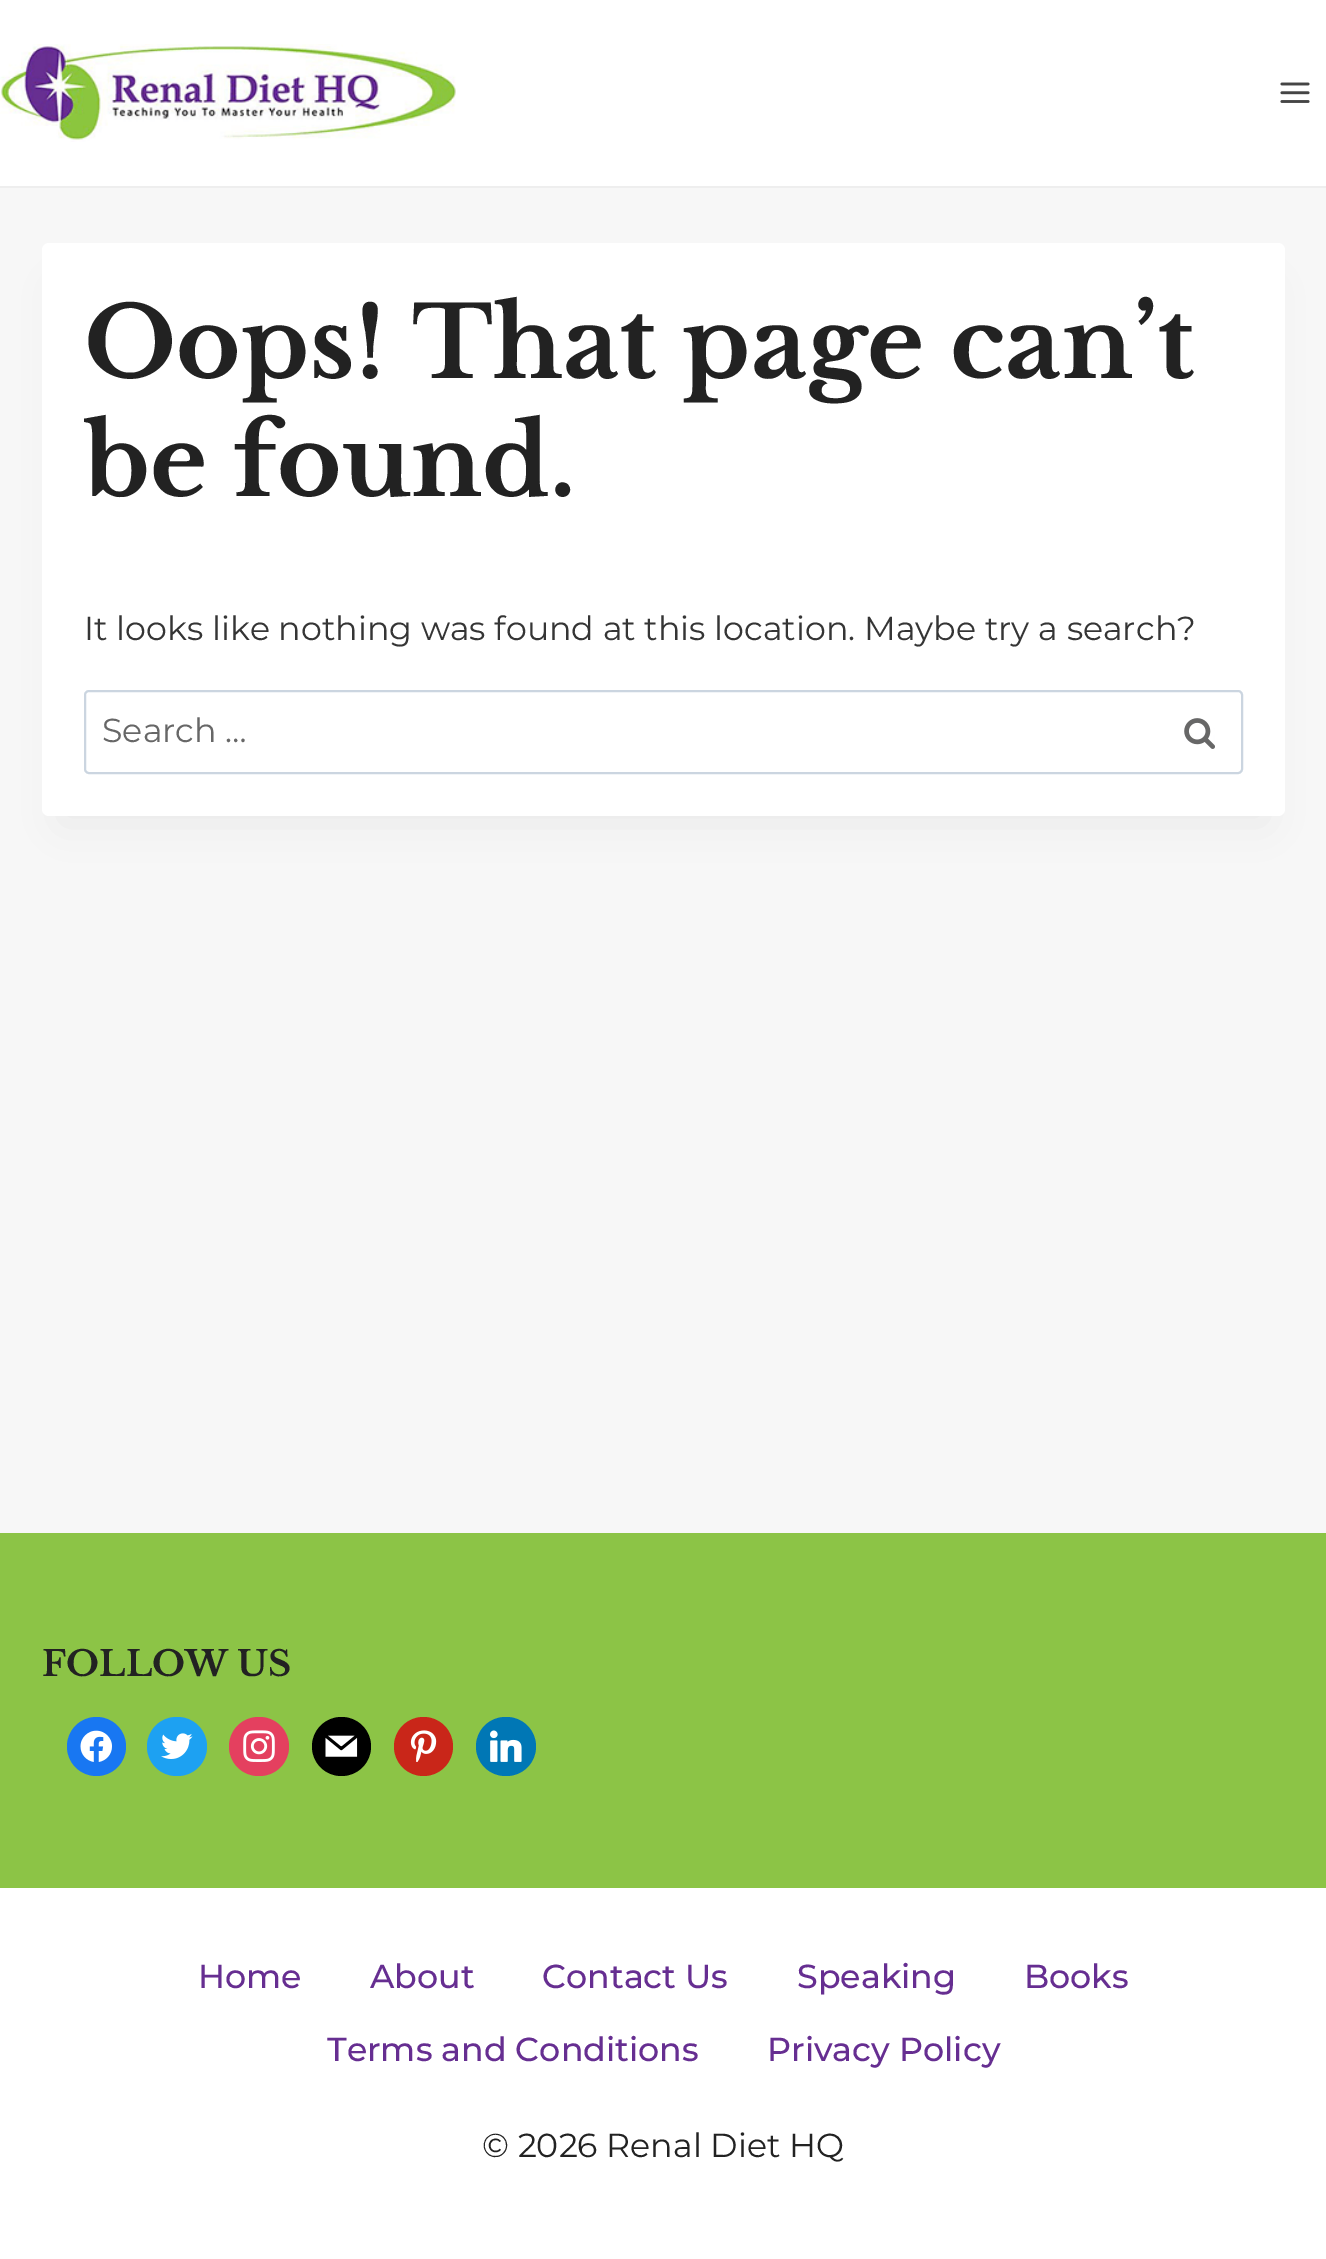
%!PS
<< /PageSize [1326 2259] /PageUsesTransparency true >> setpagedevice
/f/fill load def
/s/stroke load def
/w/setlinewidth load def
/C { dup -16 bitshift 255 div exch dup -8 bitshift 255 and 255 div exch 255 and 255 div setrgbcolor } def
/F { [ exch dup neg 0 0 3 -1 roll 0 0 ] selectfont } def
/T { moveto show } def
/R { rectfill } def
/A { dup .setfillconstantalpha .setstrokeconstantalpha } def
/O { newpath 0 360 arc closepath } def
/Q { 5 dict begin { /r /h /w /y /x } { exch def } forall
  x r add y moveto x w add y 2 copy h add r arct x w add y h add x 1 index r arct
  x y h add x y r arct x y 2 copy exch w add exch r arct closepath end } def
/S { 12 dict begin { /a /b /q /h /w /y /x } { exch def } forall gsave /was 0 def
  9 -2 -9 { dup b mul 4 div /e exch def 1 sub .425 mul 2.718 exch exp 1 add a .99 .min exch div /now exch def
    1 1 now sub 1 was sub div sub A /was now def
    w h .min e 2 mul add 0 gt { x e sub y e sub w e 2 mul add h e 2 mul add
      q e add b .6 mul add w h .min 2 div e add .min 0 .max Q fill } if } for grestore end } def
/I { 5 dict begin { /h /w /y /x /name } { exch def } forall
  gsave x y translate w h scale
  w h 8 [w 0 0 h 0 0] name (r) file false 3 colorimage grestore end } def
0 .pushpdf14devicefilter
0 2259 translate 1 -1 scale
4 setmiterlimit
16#F7F7F7 C
0 0 1326 2259 R
16#FFFFFF C
0 0 1326 186 R
16#EEEEEE C
0 186 1326 2 R
(1.rgb) 0 44 456 98 I
(2.rgb) 1280 82 30 21 I
16#000000 C
60 287 1207 537 0 22 .05 S
16#FFFFFF C
42 243 1243 573 7 Q f
/LibreBaskerville-Bold 98 F
16#222222 C
(Oops! That page can’t) 84 378 T
(be found.) 84 496 T
/Montserrat-Regular 33.25 F
16#353535 C
(It looks like nothing was found at this location. Maybe try a search?) 84 640 T
16#CBD5E0 C
2 w
85 691 1157 82 4 Q s
16#676767 C
(Search …) 102 742 T
(3.rgb) 1184 718 31 31 I
16#8CC446 C
0 1533 1326 355 R
/LibreBaskerville-Bold 35 F
16#222222 C
(FOLLOW US) 42 1676 T
16#1877F2 C
96.5 1746.5 29.5 O f
(4.rgb) 80 1730 32 32 I
16#1DA1F2 C
147 1717 60 59 29.5 Q f
(5.rgb) 161 1733 32 26 I
16#E4405F C
229 1717 60 59 29.5 Q f
(6.rgb) 243 1730 32 32 I
16#000000 C
341.5 1746.5 29.5 O f
(7.rgb) 325 1735 33 22 I
16#C92619 C
423.5 1746.5 29.5 O f
(8.rgb) 410 1730 27 32 I
16#0077B5 C
476 1717 60 59 29.5 Q f
(9.rgb) 490 1730 32 32 I
16#FFFFFF C
0 1888 1326 371 R
/Montserrat-Medium 33.25 F
16#662E91 C
(Home) 198 1988 T
(About) 370 1988 T
(Contact Us) 542 1988 T
(Speaking) 797 1988 T
(Books) 1024 1988 T
(Terms and Conditions) 327 2061 T
(Privacy Policy) 767 2061 T
/Montserrat-Regular 33.25 F
16#222222 C
(© 2026 Renal Diet HQ) 482 2157 T
.poppdf14devicefilter showpage
